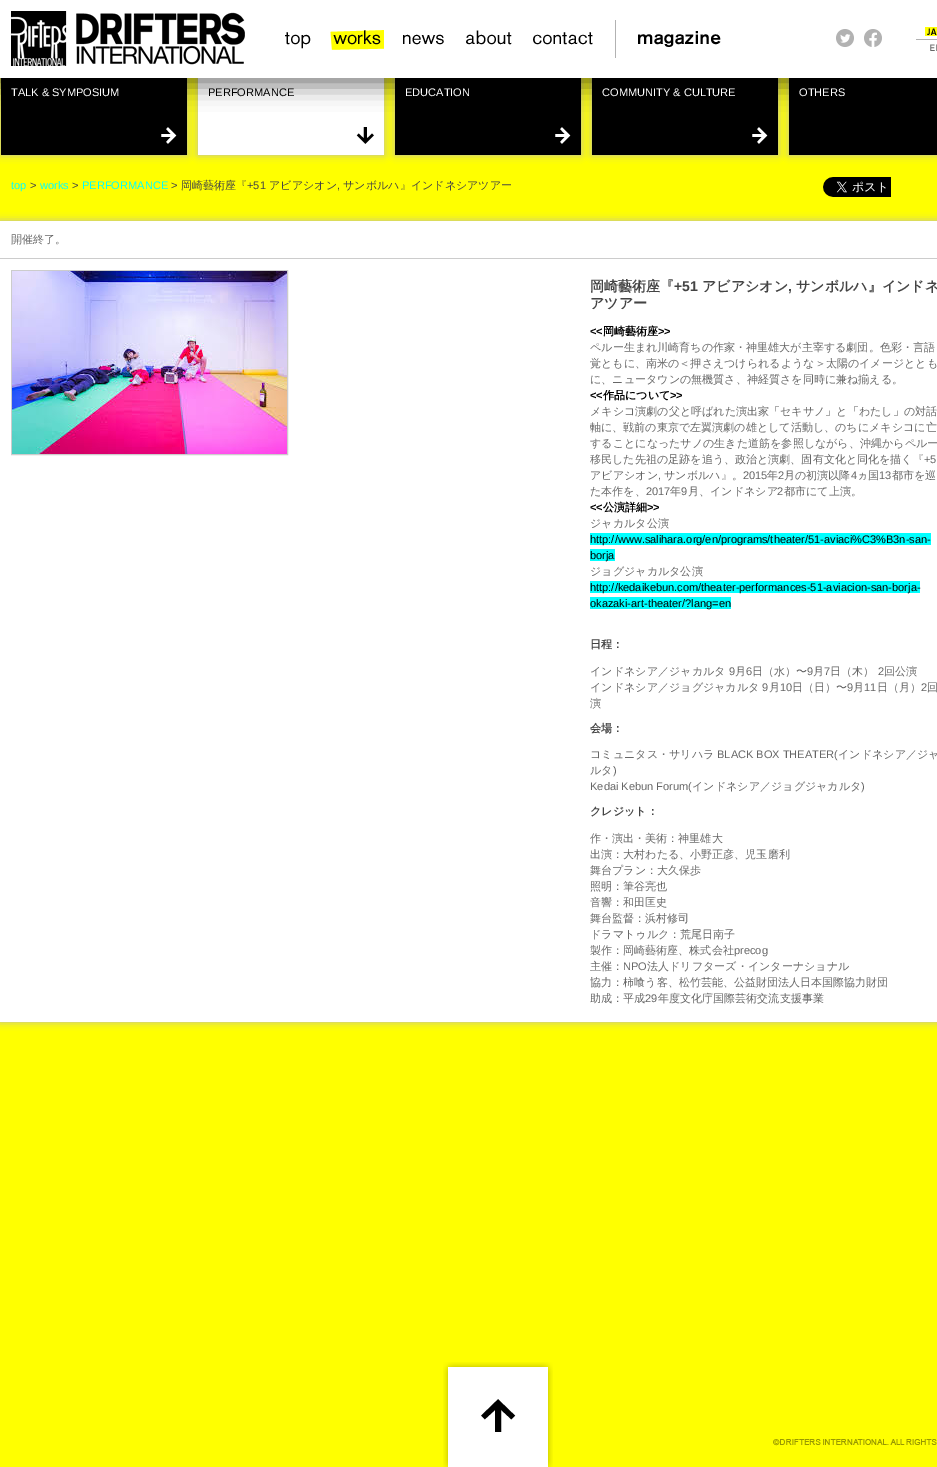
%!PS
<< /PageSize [937 1467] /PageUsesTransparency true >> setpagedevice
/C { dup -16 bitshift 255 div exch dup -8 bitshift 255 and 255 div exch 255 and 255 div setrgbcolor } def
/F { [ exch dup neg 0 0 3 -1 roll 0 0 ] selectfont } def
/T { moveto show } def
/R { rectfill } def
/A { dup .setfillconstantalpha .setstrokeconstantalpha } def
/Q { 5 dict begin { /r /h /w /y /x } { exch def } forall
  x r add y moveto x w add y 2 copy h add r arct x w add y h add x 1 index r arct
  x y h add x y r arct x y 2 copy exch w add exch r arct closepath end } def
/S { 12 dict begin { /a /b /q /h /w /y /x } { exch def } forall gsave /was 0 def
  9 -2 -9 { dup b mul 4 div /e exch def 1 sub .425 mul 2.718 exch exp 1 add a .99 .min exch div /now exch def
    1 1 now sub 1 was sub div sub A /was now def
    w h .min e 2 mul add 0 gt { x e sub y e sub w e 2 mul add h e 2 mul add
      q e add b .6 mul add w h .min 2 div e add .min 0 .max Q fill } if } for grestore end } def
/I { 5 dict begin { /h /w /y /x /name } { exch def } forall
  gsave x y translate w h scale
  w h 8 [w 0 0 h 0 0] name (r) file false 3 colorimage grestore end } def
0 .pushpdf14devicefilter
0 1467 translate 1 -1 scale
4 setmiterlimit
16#FFFF00 C
0 0 937 1467 R
16#B7B7B7 C
1 76 186 79 0 4 1 S
(12.rgb) 1 78 186 77 I
198 76 186 79 0 4 1 S
16#FFFFFF C
198 78 186 77 R
16#B7B7B7 C
395 76 186 79 0 4 1 S
(12.rgb) 395 78 186 77 I
592 76 186 79 0 4 1 S
(12.rgb) 592 78 186 77 I
789 76 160 79 0 4 1 S
16#000000 C
789 78 148 77 R
-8 -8 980 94 0 11.5 .5 S
16#FFFFFF C
0 0 937 78 R
(1.rgb) 11 11 234 55 I
(2.rgb) 285 32 26 17 I
(3.rgb) 330 30 54 20 I
(4.rgb) 403 34 41 11 I
(5.rgb) 466 30 46 15 I
(6.rgb) 533 32 60 13 I
16#B2B2B2 C
615 20 1 38 R
(7.rgb) 638 31 83 16 I
(8.rgb) 836 29 18 18 I
(9.rgb) 864 29 18 18 I
(10.rgb) 925 27 12 9 I
(11.rgb) 930 44 7 7 I
916 39 21 1 R
/LiberationSans-Regular 11.05 F
16#FFFFFF C
(TALK & SYMPOSIUM) 11 96 T
(13.rgb) 356 127 18 17 I
16#000000 C
(PERFORMANCE) 208 96 T
16#FFFFFF C
(EDUCATION) 405 96 T
(COMMUNITY & CULTURE) 602 96 T
(OTHERS) 799 96 T
16#00FFFF C
(top) 11 189 T
16#444444 C
(>) 30 189 T
16#00FFFF C
(works) 40 189 T
16#444444 C
(>) 72 189 T
16#00FFFF C
(PERFORMANCE) 82 189 T
16#444444 C
(>) 171 189 T
/WenQuanYiZenHei-Medium 11.05 F
(岡崎藝術座『) 181 189 T
/LiberationSans-Regular 11.05 F
(+51) 247 189 T
/WenQuanYiZenHei-Medium 11.05 F
(アビアシオン) 269 189 T
/LiberationSans-Regular 11.05 F
(,) 337 189 T
/WenQuanYiZenHei-Medium 11.05 F
(サンボルハ』インドネシアツアー) 343 189 T
(14.rgb) 823 177 68 20 I
16#B7B7B7 C
0 221 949 801 0 4 1 S
16#FFFFFF C
0 221 937 801 R
16#CCCCCC C
0 258 937 1 R
16#666666 C
(開催終了。) 11 243 T
16#CCCCCC C
11.5 270.5 276 184 rectstroke
(15.rgb) 12 271 275 183 I
/WenQuanYiZenHei-Bold 14 F
16#444444 C
(岡崎藝術座『) 590 291 T
/LiberationSans-Bold 14 F
(+51) 674 291 T
/WenQuanYiZenHei-Bold 14 F
(アビアシオン) 702 291 T
/LiberationSans-Bold 14 F
(,) 788 291 T
/WenQuanYiZenHei-Bold 14 F
(サンボルハ』インドネ) 796 291 T
(アツアー) 590 308 T
/LiberationSans-Bold 11.05 F
16#000000 C
(<<) 590 335 T
/WenQuanYiZenHei-Bold 11.05 F
(岡崎藝術座) 603 335 T
/LiberationSans-Bold 11.05 F
(>>) 658 335 T
/WenQuanYiZenHei-Medium 11.05 F
16#666666 C
(ペルー生まれ川崎育ちの作家・神里雄大が主宰する劇団。色彩・言語) 590 351 T
(覚ともに、南米の＜押さえつけられるような＞太陽のイメージととも) 590 367 T
(に、ニュータウンの無機質さ、神経質さを同時に兼ね揃える。) 590 383 T
/LiberationSans-Bold 11.05 F
16#000000 C
(<<) 590 399 T
/WenQuanYiZenHei-Bold 11.05 F
(作品について) 603 399 T
/LiberationSans-Bold 11.05 F
(>>) 670 399 T
/WenQuanYiZenHei-Medium 11.05 F
16#666666 C
(メキシコ演劇の父と呼ばれた演出家「セキサノ」と「わたし」の対話) 590 415 T
(軸に、戦前の東京で左翼演劇の雄として活動し、のちにメキシコに亡) 590 431 T
(することになったサノの生きた道筋を参照しながら、沖縄からペルー) 590 447 T
(移民した先祖の足跡を追う、政治と演劇、固有文化と同化を描く『) 590 463 T
/LiberationSans-Regular 11.05 F
(+5) 924 463 T
/WenQuanYiZenHei-Medium 11.05 F
(アビアシオン) 590 479 T
/LiberationSans-Regular 11.05 F
(,) 658 479 T
/WenQuanYiZenHei-Medium 11.05 F
(サンボルハ』。) 664 479 T
/LiberationSans-Regular 11.05 F
(2015) 743 479 T
/WenQuanYiZenHei-Medium 11.05 F
(年) 767 479 T
/LiberationSans-Regular 11.05 F
(2) 778 479 T
/WenQuanYiZenHei-Medium 11.05 F
(月の初演以降) 784 479 T
/LiberationSans-Regular 11.05 F
(4) 851 479 T
/WenQuanYiZenHei-Medium 11.05 F
(ヵ国) 857 479 T
/LiberationSans-Regular 11.05 F
(13) 879 479 T
/WenQuanYiZenHei-Medium 11.05 F
(都市を巡) 892 479 T
(た本作を、) 590 495 T
/LiberationSans-Regular 11.05 F
(2017) 646 495 T
/WenQuanYiZenHei-Medium 11.05 F
(年) 670 495 T
/LiberationSans-Regular 11.05 F
(9) 681 495 T
/WenQuanYiZenHei-Medium 11.05 F
(月、インドネシア) 688 495 T
/LiberationSans-Regular 11.05 F
(2) 777 495 T
/WenQuanYiZenHei-Medium 11.05 F
(都市にて上演。) 784 495 T
/LiberationSans-Bold 11.05 F
16#000000 C
(<<) 590 511 T
/WenQuanYiZenHei-Bold 11.05 F
(公演詳細) 603 511 T
/LiberationSans-Bold 11.05 F
(>>) 647 511 T
/WenQuanYiZenHei-Medium 11.05 F
16#666666 C
(ジャカルタ公演) 590 527 T
16#00FFFF C
590 533 341 12 R
/LiberationSans-Regular 11.05 F
16#000000 C
(http://www.salihara.org/en/programs/theater/51-aviaci%C3%B3n-san-) 590 543 T
16#00FFFF C
590 549 25 12 R
16#000000 C
(borja) 590 559 T
/WenQuanYiZenHei-Medium 11.05 F
16#666666 C
(ジョグジャカルタ公演) 590 575 T
16#00FFFF C
590 581 330 12 R
/LiberationSans-Regular 11.05 F
16#000000 C
(http://kedaikebun.com/theater-performances-51-aviacion-san-borja-) 590 591 T
16#00FFFF C
590 597 141 12 R
16#000000 C
(okazaki-art-theater/?lang=en) 590 607 T
/WenQuanYiZenHei-Bold 11.05 F
16#444444 C
(日程：) 590 648 T
/WenQuanYiZenHei-Medium 11.05 F
16#666666 C
(インドネシア／ジャカルタ) 590 675 T
/LiberationSans-Regular 11.05 F
(9) 729 675 T
/WenQuanYiZenHei-Medium 11.05 F
(月) 735 675 T
/LiberationSans-Regular 11.05 F
(6) 746 675 T
/WenQuanYiZenHei-Medium 11.05 F
(日（水）〜) 752 675 T
/LiberationSans-Regular 11.05 F
(9) 807 675 T
/WenQuanYiZenHei-Medium 11.05 F
(月) 813 675 T
/LiberationSans-Regular 11.05 F
(7) 824 675 T
/WenQuanYiZenHei-Medium 11.05 F
(日（木）) 830 675 T
/LiberationSans-Regular 11.05 F
(2) 878 675 T
/WenQuanYiZenHei-Medium 11.05 F
(回公演) 884 675 T
(インドネシア／ジョグジャカルタ) 590 691 T
/LiberationSans-Regular 11.05 F
(9) 762 691 T
/WenQuanYiZenHei-Medium 11.05 F
(月) 769 691 T
/LiberationSans-Regular 11.05 F
(10) 780 691 T
/WenQuanYiZenHei-Medium 11.05 F
(日（日）〜) 792 691 T
/LiberationSans-Regular 11.05 F
(9) 847 691 T
/WenQuanYiZenHei-Medium 11.05 F
(月) 853 691 T
/LiberationSans-Regular 11.05 F
(11) 864 691 T
/WenQuanYiZenHei-Medium 11.05 F
(日（月）) 877 691 T
/LiberationSans-Regular 11.05 F
(2) 921 691 T
/WenQuanYiZenHei-Medium 11.05 F
(回) 927 691 T
(演) 590 707 T
/WenQuanYiZenHei-Bold 11.05 F
16#444444 C
(会場：) 590 732 T
/WenQuanYiZenHei-Medium 11.05 F
16#666666 C
(コミュニタス・サリハラ) 590 758 T
/LiberationSans-Regular 11.05 F
(BLACK BOX THEATER\() 717 758 T
/WenQuanYiZenHei-Medium 11.05 F
(インドネシア／ジャ) 838 758 T
(ルタ) 590 774 T
/LiberationSans-Regular 11.05 F
(\)) 613 774 T
(Kedai Kebun Forum\() 590 790 T
/WenQuanYiZenHei-Medium 11.05 F
(インドネシア／ジョグジャカルタ) 692 790 T
/LiberationSans-Regular 11.05 F
(\)) 861 790 T
/WenQuanYiZenHei-Bold 11.05 F
16#444444 C
(クレジット：) 590 815 T
/WenQuanYiZenHei-Medium 11.05 F
16#666666 C
(作・演出・美術：神里雄大) 590 842 T
(出演：大村わたる、小野正彦、児玉磨利) 590 858 T
(舞台プラン：大久保歩) 590 874 T
(照明：筆谷亮也) 590 890 T
(音響：和田匡史) 590 906 T
(舞台監督：浜村修司) 590 922 T
(ドラマトゥルク：荒尾日南子) 590 938 T
(製作：岡崎藝術座、株式会社) 590 954 T
/LiberationSans-Regular 11.05 F
(precog) 734 954 T
/WenQuanYiZenHei-Medium 11.05 F
(主催：) 590 970 T
/LiberationSans-Regular 11.05 F
(NPO) 623 970 T
/WenQuanYiZenHei-Medium 11.05 F
(法人ドリフターズ・インターナショナル) 647 970 T
(協力：柿喰う客、松竹芸能、公益財団法人日本国際協力財団) 590 986 T
(助成：平成) 590 1002 T
/LiberationSans-Regular 11.05 F
(29) 645 1002 T
/WenQuanYiZenHei-Medium 11.05 F
(年度文化庁国際芸術交流支援事業) 658 1002 T
(16.rgb) 443 1362 110 105 I
(17.rgb) 773 1439 164 7 I
.poppdf14devicefilter showpage
